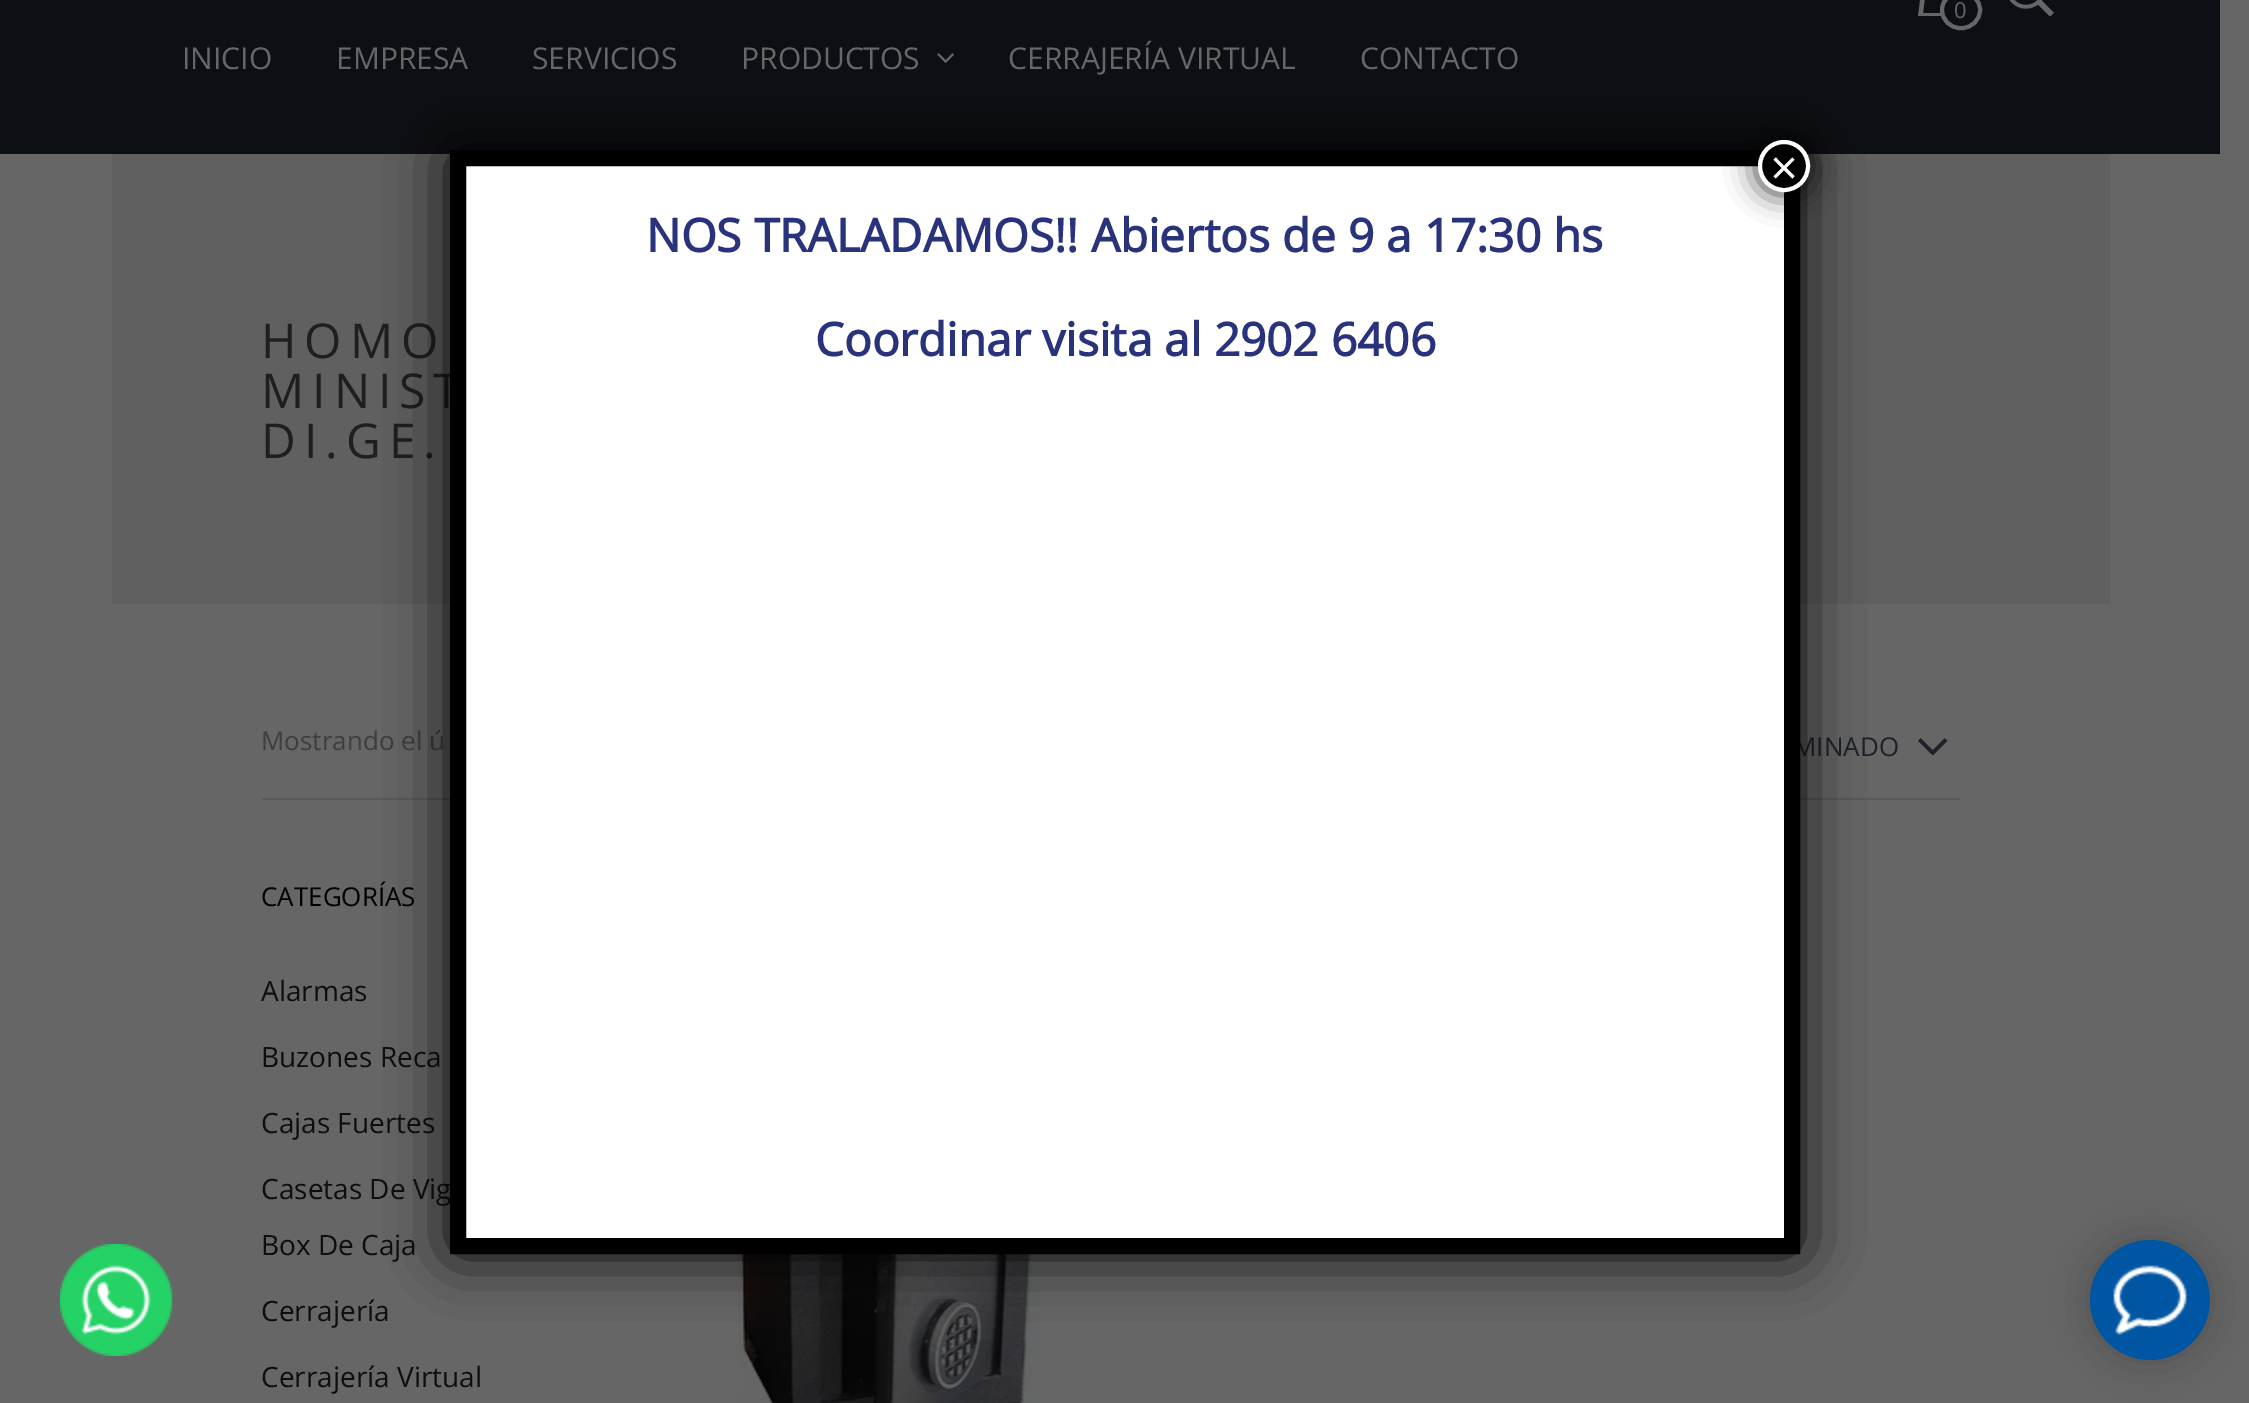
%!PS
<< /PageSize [2249 1403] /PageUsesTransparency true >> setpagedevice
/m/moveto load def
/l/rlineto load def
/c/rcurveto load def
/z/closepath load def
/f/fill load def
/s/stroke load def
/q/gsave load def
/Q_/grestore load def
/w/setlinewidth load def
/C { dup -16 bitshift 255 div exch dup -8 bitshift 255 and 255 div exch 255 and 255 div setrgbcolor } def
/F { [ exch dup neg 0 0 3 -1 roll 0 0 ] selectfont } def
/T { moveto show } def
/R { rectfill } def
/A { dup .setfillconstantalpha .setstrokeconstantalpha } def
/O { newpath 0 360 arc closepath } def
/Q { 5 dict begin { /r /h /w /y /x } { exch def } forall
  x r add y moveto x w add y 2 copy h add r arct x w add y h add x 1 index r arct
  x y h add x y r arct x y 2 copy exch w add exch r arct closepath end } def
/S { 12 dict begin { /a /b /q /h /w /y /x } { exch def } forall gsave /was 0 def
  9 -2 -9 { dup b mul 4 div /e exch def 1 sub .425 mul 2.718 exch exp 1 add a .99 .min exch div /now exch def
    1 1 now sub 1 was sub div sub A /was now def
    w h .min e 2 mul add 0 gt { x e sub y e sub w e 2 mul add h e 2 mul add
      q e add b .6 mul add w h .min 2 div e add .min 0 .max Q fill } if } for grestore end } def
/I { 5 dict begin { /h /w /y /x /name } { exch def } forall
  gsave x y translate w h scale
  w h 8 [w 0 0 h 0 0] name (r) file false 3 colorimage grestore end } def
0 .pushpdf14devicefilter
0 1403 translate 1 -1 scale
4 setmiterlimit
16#666666 C
0 0 2249 1403 R
16#0C0F14 C
0 0 2220 154 R
q
1916 0 50 16 rectclip
16#666666 C
1962 -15 m -6 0 l 0 -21 -28 -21 -28 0 c -6 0 l -4 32 l 48 0 l z 1932 -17 m 0 -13 20 -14 20 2 c -20 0 l z 1923 13 m 3 -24 l 32 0 l 3 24 l z f
Q_
1942 -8 38 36 18 Q q f Q_
16#666666 C
4 w
s
/OpenSans-Regular 22 F
(0) 1954 18 T
(1.rgb) 2009 0 45 16 I
/OpenSans-Regular 30 F
(INICIO) 182 69 T
(EMPRESA) 336 69 T
(SERVICIOS) 532 69 T
(PRODUCTOS) 741 69 T
(2.rgb) 937 53 17 10 I
(CERRAJERÍA VIRTUAL) 1008 69 T
(CONTACTO) 1360 69 T
16#606060 C
112 154 1998 450 R
/OpenSans-Regular 48 F
16#1E1F21 C
261 358 m 8 0 (HOMO) ashow
261 408 m 8 0 (MINIST) ashow
261 458 m 8 0 (DI.GE.) ashow
/OpenSans-Regular 26 F
16#3E3E3E C
(Mostrando el ú) 261 750 T
16#1E202A C
(MINADO) 1793 756 T
(3.rgb) 1918 738 30 18 I
16#5A5A5A C
262 798 1698 2 R
16#000000 C
(CATEGORÍAS) 261 906 T
/OpenSans-Regular 28 F
16#0E0E0E C
(Alarmas) 261 1001 T
(Buzones Reca) 261 1067 T
(Cajas Fuertes) 261 1133 T
(Casetas De Vig) 261 1199 T
(Box De Caja) 261 1255 T
(Cerrajería) 261 1321 T
(Cerrajería Virtual) 261 1387 T
(4.rgb) 736 1254 323 149 I
16#020202 C
450 150 1350 1104 6 30 1 S
16#FFFFFF C
466 166 1318 1072 R
16#000000 C
16 w
458 158 m 1334 0 l 0 1088 l -1334 0 l z s
16#020202 C
1756 138 56 56 28 15 .75 S
16#000000 C
1784 166 24 O q f Q_
16#FFFFFF C
4 w
s
/LiberationSans-Regular 48 F
(×) 1770 184 T
/OpenSans-Bold 46 F
16#28337C C
(NOS TRALADAMOS!! Abiertos de 9 a 17:30 hs) 646 252 T
(Coordinar visita al 2902 6406) 815 356 T
(5.rgb) 60 1244 113 112 I
16#000000 C
2090 1240 120 120 60 20 .2 S
16#0056A3 C
2150 1300 60 O f
(6.rgb) 2113 1265 74 70 I
.poppdf14devicefilter showpage
